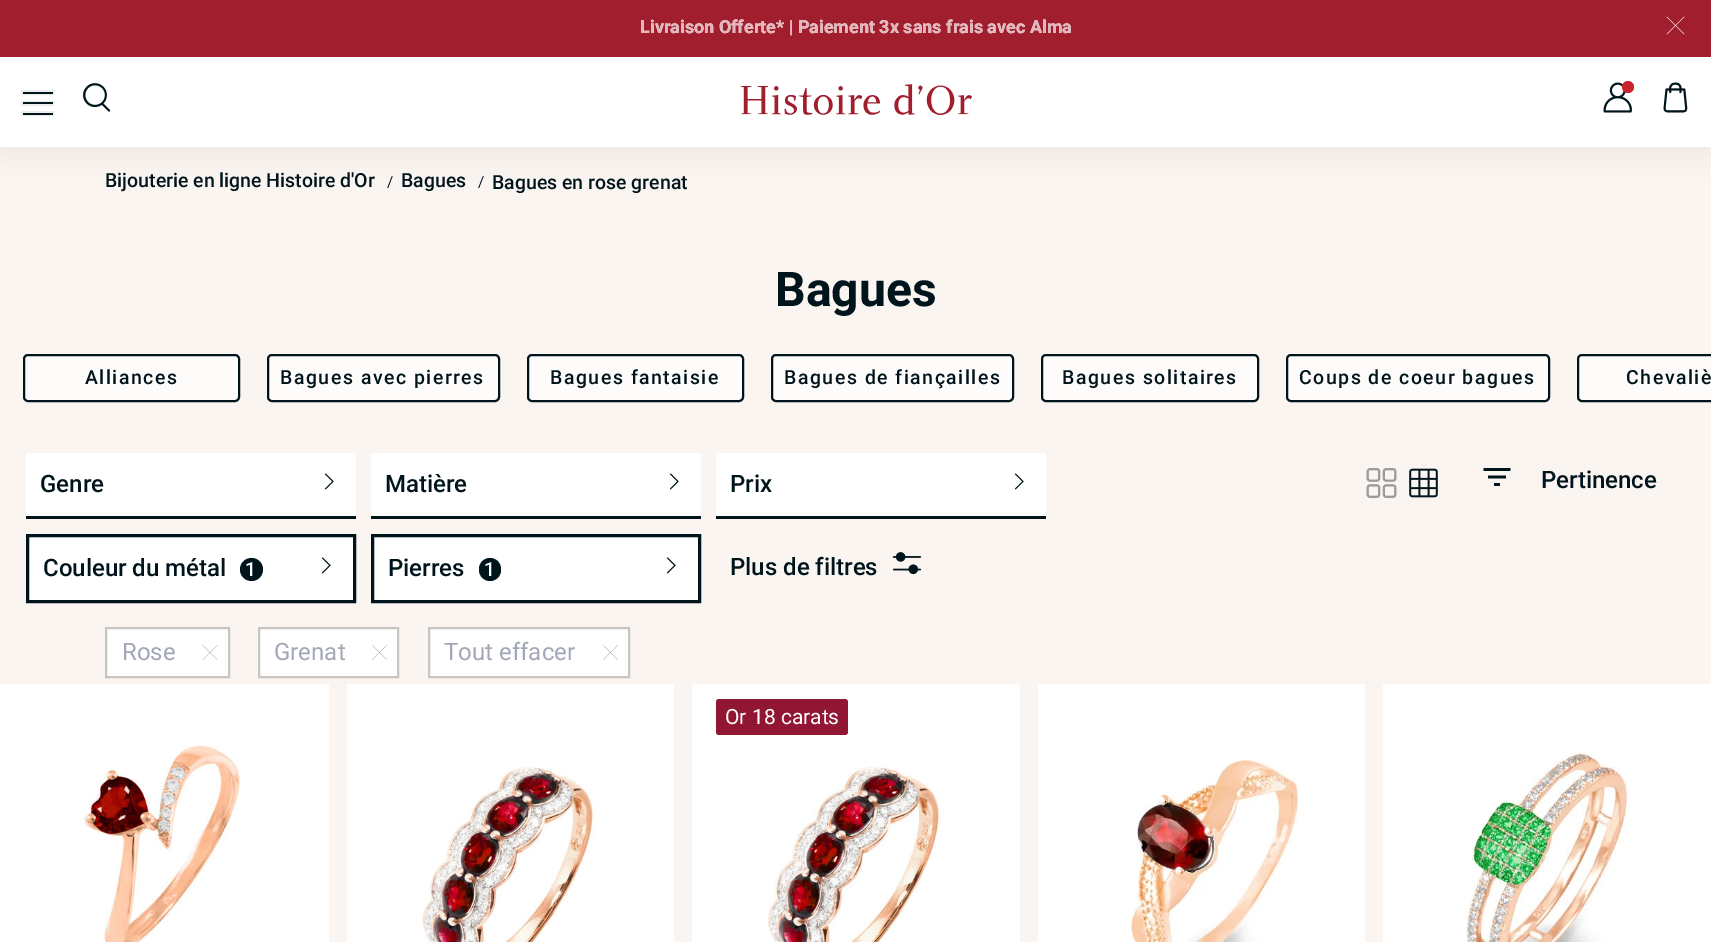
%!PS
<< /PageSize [1711 942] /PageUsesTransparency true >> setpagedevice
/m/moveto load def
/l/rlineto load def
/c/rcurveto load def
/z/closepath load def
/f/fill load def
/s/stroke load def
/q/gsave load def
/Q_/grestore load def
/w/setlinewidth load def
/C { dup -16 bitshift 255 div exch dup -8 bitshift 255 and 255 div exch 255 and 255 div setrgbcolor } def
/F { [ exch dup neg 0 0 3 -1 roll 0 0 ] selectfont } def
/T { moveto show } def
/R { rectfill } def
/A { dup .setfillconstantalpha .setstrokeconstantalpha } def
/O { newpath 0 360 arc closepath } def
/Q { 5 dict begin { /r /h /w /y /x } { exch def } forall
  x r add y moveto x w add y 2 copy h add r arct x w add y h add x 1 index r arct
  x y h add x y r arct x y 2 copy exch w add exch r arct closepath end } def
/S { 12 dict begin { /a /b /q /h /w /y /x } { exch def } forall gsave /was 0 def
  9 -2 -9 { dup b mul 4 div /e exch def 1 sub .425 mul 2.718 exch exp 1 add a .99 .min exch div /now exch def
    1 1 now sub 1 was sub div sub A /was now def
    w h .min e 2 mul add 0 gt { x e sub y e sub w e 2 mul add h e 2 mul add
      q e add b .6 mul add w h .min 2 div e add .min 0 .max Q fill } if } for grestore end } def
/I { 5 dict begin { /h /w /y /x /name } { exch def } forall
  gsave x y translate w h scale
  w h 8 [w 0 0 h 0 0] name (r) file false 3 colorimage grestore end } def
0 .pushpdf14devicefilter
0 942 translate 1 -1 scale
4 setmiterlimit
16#FBF5F1 C
0 0 1711 942 R
16#000000 C
0 65 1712 90 0 15 .05 S
16#FFFFFF C
0 57 1711 90 R
16#EDEDED C
2 w
22 91 31 3 rectstroke
16#00141C C
23 92 30 2 R
16#EDEDED C
22 102 31 3 rectstroke
16#00141C C
23 102 30 2 R
16#EDEDED C
22 112 31 3 rectstroke
16#00141C C
23 113 30 2 R
(1.rgb) 83 83 28 29 I
(2.rgb) 1603 82 29 31 I
16#C8232C C
1628 87 6 O f
(3.rgb) 1663 82 25 31 I
(4.rgb) 741 84 231 31 I
16#A11E2E C
0 0 1711 57 R
/Roboto-Bold 18 F
16#FFFFFF C
(Livraison Offerte* | Paiement 3x sans frais avec Alma) 640 33 T
16#E1B7BC C
(Livraison Offerte* | Paiement 3x sans frais avec Alma) 640 33 T
(5.rgb) 1666 16 19 19 I
/Roboto-Medium 19.5 F
16#00141C C
(Bijouterie en ligne Histoire d'Or) 105 187 T
/Roboto-Regular 15 F
(/) 387 187 T
/Roboto-Medium 19.5 F
(Bagues) 401 187 T
/Roboto-Regular 15 F
(/) 478 187 T
/Roboto-Medium 19.5 F
(Bagues en rose grenat) 492 189 T
/Roboto-Bold 48 F
(Bagues) 775 306 T
16#FEFCFB C
24 355 215 46 4 Q q f Q_
16#00141C C
s
/Roboto-Medium 19.5 F
85 384 m 1.5 0 (Alliances) ashow
16#FEFCFB C
268 355 231 46 4 Q q f Q_
16#00141C C
s
280 384 m 1.5 0 (Bagues avec pierres) ashow
16#FEFCFB C
528 355 215 46 4 Q q f Q_
16#00141C C
s
550 384 m 1.5 0 (Bagues fantaisie) ashow
16#FEFCFB C
772 355 241 46 4 Q q f Q_
16#00141C C
s
784 384 m 1.5 0 (Bagues de fiançailles) ashow
16#FEFCFB C
1042 355 216 46 4 Q q f Q_
16#00141C C
s
1062 384 m 1.5 0 (Bagues solitaires) ashow
16#FEFCFB C
1287 355 262 46 4 Q q f Q_
16#00141C C
s
1299 384 m 1.5 0 (Coups de coeur bagues) ashow
16#FEFCFB C
1582 354 m 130 0 l 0 48 l -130 0 l -3 0 -5 -2 -5 -5 c 0 -38 l 0 -3 2 -5 5 -5 c z f
16#00141C C
1578 355 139 46 4 Q s
1626 384 m 1.5 0 (Chevaliè) ashow
16#FFFFFF C
26 453 330 63 R
16#00141C C
26 516 330 3 R
/Roboto-Medium 24 F
(Genre) 40 492 T
(6.rgb) 324 473 10 17 I
16#FFFFFF C
371 453 330 63 R
16#00141C C
371 516 330 3 R
(Matière) 385 492 T
(6.rgb) 669 473 10 17 I
16#FFFFFF C
716 453 330 63 R
16#00141C C
716 516 330 3 R
(Prix) 730 492 T
(6.rgb) 1014 473 10 17 I
16#FFFFFF C
27.5 535.5 m 327 0 l 0 66 l -327 0 l z q f Q_
16#00141C C
3 w
s
(Couleur du métal) 43 576 T
251.5 569.5 11.5 O f
/Roboto-Medium 19.5 F
16#FFFFFF C
(1) 245 576 T
(6.rgb) 321 557 10 17 I
372.5 535.5 m 327 0 l 0 66 l -327 0 l z q f Q_
16#00141C C
s
/Roboto-Medium 24 F
(Pierres) 388 576 T
479 558 22 23 11 Q f
/Roboto-Medium 19.5 F
16#FFFFFF C
(1) 484 576 T
(6.rgb) 666 557 10 17 I
/Roboto-Medium 24 F
16#00141C C
(Plus de filtres) 730 575 T
(7.rgb) 892 552 30 23 I
(8.rgb) 1366 468 31 30 I
(9.rgb) 1409 468 29 30 I
(10.rgb) 1483 468 28 18 I
(Pertinence) 1541 488 T
16#FFFFFF C
106 628 m 123 0 l 0 49 l -123 0 l z q f Q_
16#C8C4C0 C
2 w
s
/Roboto-Regular 24 F
16#A2A6B7 C
(Rose) 122 660 T
(11.rgb) 202 645 16 15 I
16#FFFFFF C
259 628 m 139 0 l 0 49 l -139 0 l z q f Q_
16#C8C4C0 C
s
16#A2A6B7 C
(Grenat) 274 660 T
(12.rgb) 372 645 15 15 I
16#FFFFFF C
429 628 m 200 0 l 0 49 l -200 0 l z q f Q_
16#C8C4C0 C
s
16#A2A6B7 C
(Tout effacer) 444 660 T
(12.rgb) 603 645 15 15 I
16#FFFFFF C
0 684 329 258 R
(13.rgb) 83 745 159 197 I
347 684 327 258 R
(14.rgb) 422 766 173 176 I
692 684 328 258 R
16#901634 C
716 699 132 36 3 Q f
/Roboto-Regular 21 F
16#FFFFFF C
(Or 18 carats) 725 724 T
(15.rgb) 767 766 174 176 I
1038 684 327 258 R
(16.rgb) 1130 759 168 183 I
1383 684 328 258 R
(17.rgb) 1466 751 162 191 I
.poppdf14devicefilter showpage
